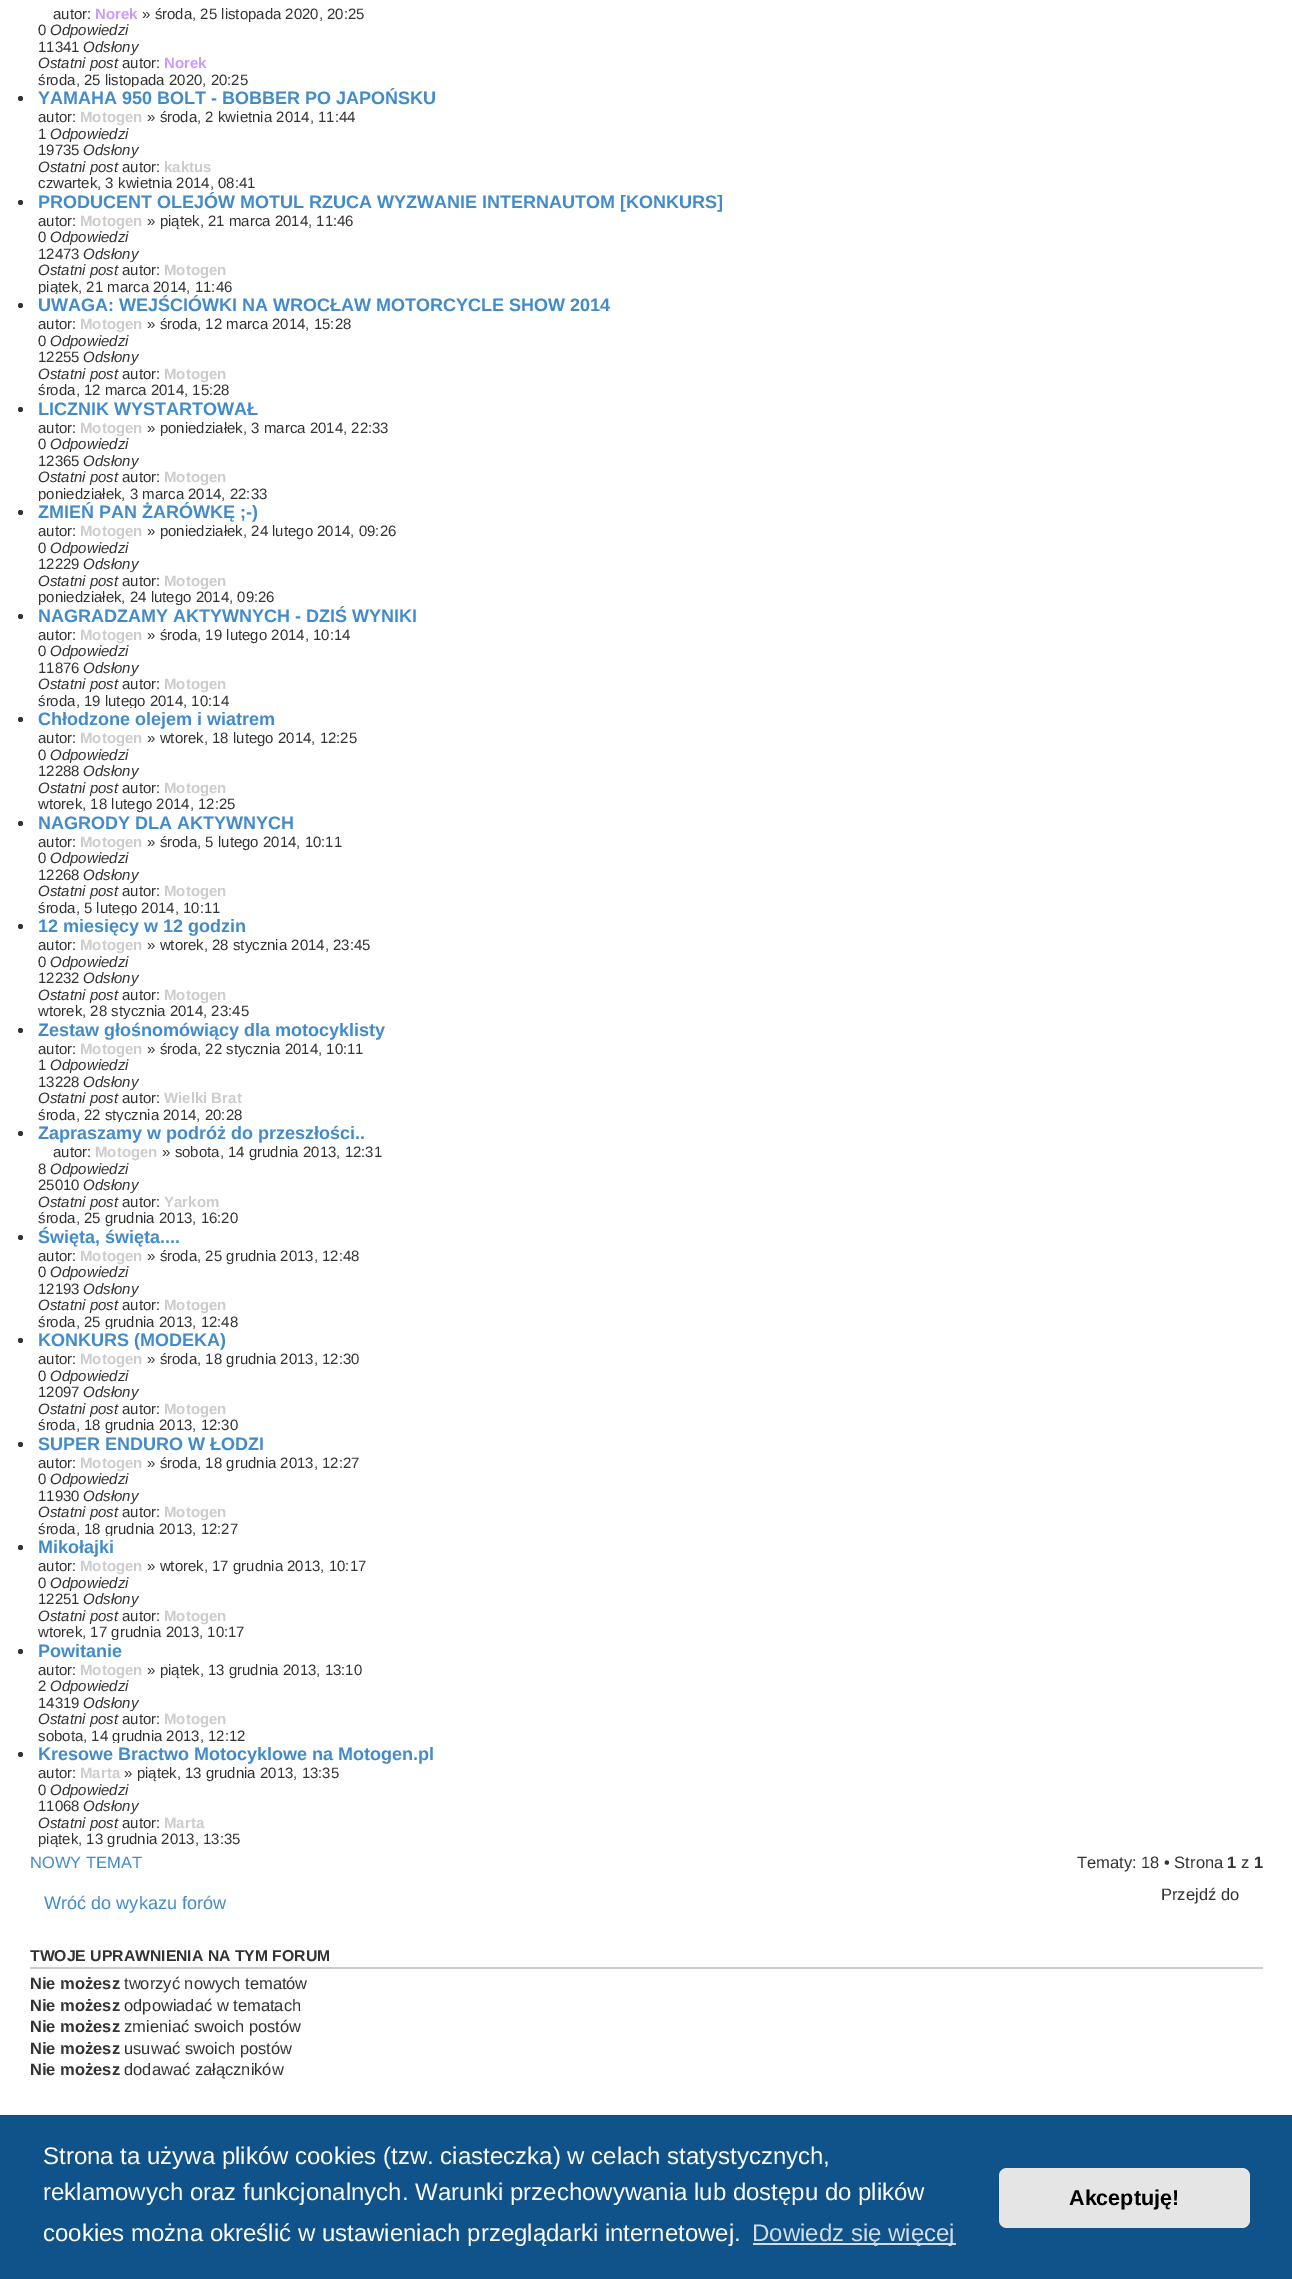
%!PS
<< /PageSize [1292 2279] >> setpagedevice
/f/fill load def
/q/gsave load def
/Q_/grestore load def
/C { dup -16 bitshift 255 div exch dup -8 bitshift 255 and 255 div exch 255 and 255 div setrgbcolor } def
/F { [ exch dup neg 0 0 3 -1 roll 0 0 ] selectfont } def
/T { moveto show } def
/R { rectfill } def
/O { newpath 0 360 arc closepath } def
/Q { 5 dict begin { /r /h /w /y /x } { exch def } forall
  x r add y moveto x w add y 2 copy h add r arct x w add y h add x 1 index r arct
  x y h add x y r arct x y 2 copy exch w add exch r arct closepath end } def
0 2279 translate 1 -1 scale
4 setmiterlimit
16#FFFFFF C
0 0 1292 2279 R
/LiberationSans-Regular 15 F
16#333333 C
(autor:) 53 19 T
/LiberationSans-Bold 15 F
16#CC99FF C
(Norek) 95 19 T
/LiberationSans-Regular 15 F
16#333333 C
(» środa, 25 listopada 2020, 20:25) 142 19 T
(0) 38 35 T
/LiberationSans-Italic 15 F
(Odpowiedzi) 50 35 T
/LiberationSans-Regular 15 F
(11341) 38 52 T
/LiberationSans-Italic 15 F
(Odsłony) 83 52 T
(Ostatni post) 38 68 T
/LiberationSans-Regular 15 F
(autor:) 122 68 T
/LiberationSans-Bold 15 F
16#CC99FF C
(Norek) 164 68 T
q
38 0 1218 87 rectclip
/LiberationSans-Regular 15 F
16#333333 C
(środa, 25 listopada 2020, 20:25) 38 85 T
Q_
16#333333 C
20.5 98.5 2.5 O f
/LiberationSans-Bold 18 F
16#428BCA C
(YAMAHA 950 BOLT - BOBBER PO JAPOŃSKU) 38 104 T
/LiberationSans-Regular 15 F
16#333333 C
(autor:) 38 122 T
/LiberationSans-Bold 15 F
16#CCCCCC C
(Motogen) 80 122 T
/LiberationSans-Regular 15 F
16#333333 C
(» środa, 2 kwietnia 2014, 11:44) 147 122 T
(1) 38 139 T
/LiberationSans-Italic 15 F
(Odpowiedzi) 50 139 T
/LiberationSans-Regular 15 F
(19735) 38 155 T
/LiberationSans-Italic 15 F
(Odsłony) 83 155 T
(Ostatni post) 38 172 T
/LiberationSans-Regular 15 F
(autor:) 122 172 T
/LiberationSans-Bold 15 F
16#CCCCCC C
(kaktus) 164 172 T
/LiberationSans-Regular 15 F
16#333333 C
(czwartek, 3 kwietnia 2014, 08:41) 38 188 T
20.5 202.5 2.5 O f
/LiberationSans-Bold 18 F
16#428BCA C
(PRODUCENT OLEJÓW MOTUL RZUCA WYZWANIE INTERNAUTOM [KONKURS]) 38 208 T
/LiberationSans-Regular 15 F
16#333333 C
(autor:) 38 226 T
/LiberationSans-Bold 15 F
16#CCCCCC C
(Motogen) 80 226 T
/LiberationSans-Regular 15 F
16#333333 C
(» piątek, 21 marca 2014, 11:46) 147 226 T
(0) 38 242 T
/LiberationSans-Italic 15 F
(Odpowiedzi) 50 242 T
/LiberationSans-Regular 15 F
(12473) 38 259 T
/LiberationSans-Italic 15 F
(Odsłony) 83 259 T
(Ostatni post) 38 275 T
/LiberationSans-Regular 15 F
(autor:) 122 275 T
/LiberationSans-Bold 15 F
16#CCCCCC C
(Motogen) 164 275 T
q
38 191 1218 103 rectclip
/LiberationSans-Regular 15 F
16#333333 C
(piątek, 21 marca 2014, 11:46) 38 292 T
Q_
16#333333 C
20.5 305.5 2.5 O f
/LiberationSans-Bold 18 F
16#428BCA C
(UWAGA: WEJŚCIÓWKI NA WROCŁAW MOTORCYCLE SHOW 2014) 38 311 T
/LiberationSans-Regular 15 F
16#333333 C
(autor:) 38 329 T
/LiberationSans-Bold 15 F
16#CCCCCC C
(Motogen) 80 329 T
/LiberationSans-Regular 15 F
16#333333 C
(» środa, 12 marca 2014, 15:28) 147 329 T
(0) 38 346 T
/LiberationSans-Italic 15 F
(Odpowiedzi) 50 346 T
/LiberationSans-Regular 15 F
(12255) 38 362 T
/LiberationSans-Italic 15 F
(Odsłony) 83 362 T
(Ostatni post) 38 379 T
/LiberationSans-Regular 15 F
(autor:) 122 379 T
/LiberationSans-Bold 15 F
16#CCCCCC C
(Motogen) 164 379 T
/LiberationSans-Regular 15 F
16#333333 C
(środa, 12 marca 2014, 15:28) 38 395 T
20.5 409.5 2.5 O f
/LiberationSans-Bold 18 F
16#428BCA C
(LICZNIK WYSTARTOWAŁ) 38 415 T
/LiberationSans-Regular 15 F
16#333333 C
(autor:) 38 433 T
/LiberationSans-Bold 15 F
16#CCCCCC C
(Motogen) 80 433 T
/LiberationSans-Regular 15 F
16#333333 C
(» poniedziałek, 3 marca 2014, 22:33) 147 433 T
(0) 38 449 T
/LiberationSans-Italic 15 F
(Odpowiedzi) 50 449 T
/LiberationSans-Regular 15 F
(12365) 38 466 T
/LiberationSans-Italic 15 F
(Odsłony) 83 466 T
(Ostatni post) 38 482 T
/LiberationSans-Regular 15 F
(autor:) 122 482 T
/LiberationSans-Bold 15 F
16#CCCCCC C
(Motogen) 164 482 T
q
38 398 1218 103 rectclip
/LiberationSans-Regular 15 F
16#333333 C
(poniedziałek, 3 marca 2014, 22:33) 38 499 T
Q_
16#333333 C
20.5 512.5 2.5 O f
/LiberationSans-Bold 18 F
16#428BCA C
(ZMIEŃ PAN ŻARÓWKĘ ;-\)) 38 518 T
/LiberationSans-Regular 15 F
16#333333 C
(autor:) 38 536 T
/LiberationSans-Bold 15 F
16#CCCCCC C
(Motogen) 80 536 T
/LiberationSans-Regular 15 F
16#333333 C
(» poniedziałek, 24 lutego 2014, 09:26) 147 536 T
(0) 38 553 T
/LiberationSans-Italic 15 F
(Odpowiedzi) 50 553 T
/LiberationSans-Regular 15 F
(12229) 38 569 T
/LiberationSans-Italic 15 F
(Odsłony) 83 569 T
(Ostatni post) 38 586 T
/LiberationSans-Regular 15 F
(autor:) 122 586 T
/LiberationSans-Bold 15 F
16#CCCCCC C
(Motogen) 164 586 T
q
38 501 1218 104 rectclip
/LiberationSans-Regular 15 F
16#333333 C
(poniedziałek, 24 lutego 2014, 09:26) 38 602 T
Q_
16#333333 C
20.5 616.5 2.5 O f
/LiberationSans-Bold 18 F
16#428BCA C
(NAGRADZAMY AKTYWNYCH - DZIŚ WYNIKI) 38 622 T
/LiberationSans-Regular 15 F
16#333333 C
(autor:) 38 640 T
/LiberationSans-Bold 15 F
16#CCCCCC C
(Motogen) 80 640 T
/LiberationSans-Regular 15 F
16#333333 C
(» środa, 19 lutego 2014, 10:14) 147 640 T
(0) 38 656 T
/LiberationSans-Italic 15 F
(Odpowiedzi) 50 656 T
/LiberationSans-Regular 15 F
(11876) 38 673 T
/LiberationSans-Italic 15 F
(Odsłony) 83 673 T
(Ostatni post) 38 689 T
/LiberationSans-Regular 15 F
(autor:) 122 689 T
/LiberationSans-Bold 15 F
16#CCCCCC C
(Motogen) 164 689 T
q
38 605 1218 103 rectclip
/LiberationSans-Regular 15 F
16#333333 C
(środa, 19 lutego 2014, 10:14) 38 706 T
Q_
16#333333 C
20.5 719.5 2.5 O f
/LiberationSans-Bold 18 F
16#428BCA C
(Chłodzone olejem i wiatrem) 38 725 T
/LiberationSans-Regular 15 F
16#333333 C
(autor:) 38 743 T
/LiberationSans-Bold 15 F
16#CCCCCC C
(Motogen) 80 743 T
/LiberationSans-Regular 15 F
16#333333 C
(» wtorek, 18 lutego 2014, 12:25) 147 743 T
(0) 38 760 T
/LiberationSans-Italic 15 F
(Odpowiedzi) 50 760 T
/LiberationSans-Regular 15 F
(12288) 38 776 T
/LiberationSans-Italic 15 F
(Odsłony) 83 776 T
(Ostatni post) 38 793 T
/LiberationSans-Regular 15 F
(autor:) 122 793 T
/LiberationSans-Bold 15 F
16#CCCCCC C
(Motogen) 164 793 T
/LiberationSans-Regular 15 F
16#333333 C
(wtorek, 18 lutego 2014, 12:25) 38 809 T
20.5 823.5 2.5 O f
/LiberationSans-Bold 18 F
16#428BCA C
(NAGRODY DLA AKTYWNYCH) 38 829 T
/LiberationSans-Regular 15 F
16#333333 C
(autor:) 38 847 T
/LiberationSans-Bold 15 F
16#CCCCCC C
(Motogen) 80 847 T
/LiberationSans-Regular 15 F
16#333333 C
(» środa, 5 lutego 2014, 10:11) 147 847 T
(0) 38 863 T
/LiberationSans-Italic 15 F
(Odpowiedzi) 50 863 T
/LiberationSans-Regular 15 F
(12268) 38 880 T
/LiberationSans-Italic 15 F
(Odsłony) 83 880 T
(Ostatni post) 38 896 T
/LiberationSans-Regular 15 F
(autor:) 122 896 T
/LiberationSans-Bold 15 F
16#CCCCCC C
(Motogen) 164 896 T
q
38 812 1218 103 rectclip
/LiberationSans-Regular 15 F
16#333333 C
(środa, 5 lutego 2014, 10:11) 38 913 T
Q_
16#333333 C
20.5 926.5 2.5 O f
/LiberationSans-Bold 18 F
16#428BCA C
(12 miesięcy w 12 godzin) 38 932 T
/LiberationSans-Regular 15 F
16#333333 C
(autor:) 38 950 T
/LiberationSans-Bold 15 F
16#CCCCCC C
(Motogen) 80 950 T
/LiberationSans-Regular 15 F
16#333333 C
(» wtorek, 28 stycznia 2014, 23:45) 147 950 T
(0) 38 967 T
/LiberationSans-Italic 15 F
(Odpowiedzi) 50 967 T
/LiberationSans-Regular 15 F
(12232) 38 983 T
/LiberationSans-Italic 15 F
(Odsłony) 83 983 T
(Ostatni post) 38 1000 T
/LiberationSans-Regular 15 F
(autor:) 122 1000 T
/LiberationSans-Bold 15 F
16#CCCCCC C
(Motogen) 164 1000 T
q
38 915 1218 104 rectclip
/LiberationSans-Regular 15 F
16#333333 C
(wtorek, 28 stycznia 2014, 23:45) 38 1016 T
Q_
16#333333 C
20.5 1030.5 2.5 O f
/LiberationSans-Bold 18 F
16#428BCA C
(Zestaw głośnomówiący dla motocyklisty) 38 1036 T
/LiberationSans-Regular 15 F
16#333333 C
(autor:) 38 1054 T
/LiberationSans-Bold 15 F
16#CCCCCC C
(Motogen) 80 1054 T
/LiberationSans-Regular 15 F
16#333333 C
(» środa, 22 stycznia 2014, 10:11) 147 1054 T
(1) 38 1070 T
/LiberationSans-Italic 15 F
(Odpowiedzi) 50 1070 T
/LiberationSans-Regular 15 F
(13228) 38 1087 T
/LiberationSans-Italic 15 F
(Odsłony) 83 1087 T
(Ostatni post) 38 1103 T
/LiberationSans-Regular 15 F
(autor:) 122 1103 T
/LiberationSans-Bold 15 F
16#CCCCCC C
(Wielki Brat) 164 1103 T
q
38 1019 1218 103 rectclip
/LiberationSans-Regular 15 F
16#333333 C
(środa, 22 stycznia 2014, 20:28) 38 1120 T
Q_
16#333333 C
20.5 1133.5 2.5 O f
/LiberationSans-Bold 18 F
16#428BCA C
(Zapraszamy w podróż do przeszłości..) 38 1139 T
/LiberationSans-Regular 15 F
16#333333 C
(autor:) 53 1157 T
/LiberationSans-Bold 15 F
16#CCCCCC C
(Motogen) 95 1157 T
/LiberationSans-Regular 15 F
16#333333 C
(» sobota, 14 grudnia 2013, 12:31) 162 1157 T
(8) 38 1174 T
/LiberationSans-Italic 15 F
(Odpowiedzi) 50 1174 T
/LiberationSans-Regular 15 F
(25010) 38 1190 T
/LiberationSans-Italic 15 F
(Odsłony) 83 1190 T
(Ostatni post) 38 1207 T
/LiberationSans-Regular 15 F
(autor:) 122 1207 T
/LiberationSans-Bold 15 F
16#CCCCCC C
(Yarkom) 164 1207 T
/LiberationSans-Regular 15 F
16#333333 C
(środa, 25 grudnia 2013, 16:20) 38 1223 T
20.5 1237.5 2.5 O f
/LiberationSans-Bold 18 F
16#428BCA C
(Święta, święta....) 38 1243 T
/LiberationSans-Regular 15 F
16#333333 C
(autor:) 38 1261 T
/LiberationSans-Bold 15 F
16#CCCCCC C
(Motogen) 80 1261 T
/LiberationSans-Regular 15 F
16#333333 C
(» środa, 25 grudnia 2013, 12:48) 147 1261 T
(0) 38 1277 T
/LiberationSans-Italic 15 F
(Odpowiedzi) 50 1277 T
/LiberationSans-Regular 15 F
(12193) 38 1294 T
/LiberationSans-Italic 15 F
(Odsłony) 83 1294 T
(Ostatni post) 38 1310 T
/LiberationSans-Regular 15 F
(autor:) 122 1310 T
/LiberationSans-Bold 15 F
16#CCCCCC C
(Motogen) 164 1310 T
q
38 1226 1218 103 rectclip
/LiberationSans-Regular 15 F
16#333333 C
(środa, 25 grudnia 2013, 12:48) 38 1327 T
Q_
16#333333 C
20.5 1340.5 2.5 O f
/LiberationSans-Bold 18 F
16#428BCA C
(KONKURS \(MODEKA\)) 38 1346 T
/LiberationSans-Regular 15 F
16#333333 C
(autor:) 38 1364 T
/LiberationSans-Bold 15 F
16#CCCCCC C
(Motogen) 80 1364 T
/LiberationSans-Regular 15 F
16#333333 C
(» środa, 18 grudnia 2013, 12:30) 147 1364 T
(0) 38 1381 T
/LiberationSans-Italic 15 F
(Odpowiedzi) 50 1381 T
/LiberationSans-Regular 15 F
(12097) 38 1397 T
/LiberationSans-Italic 15 F
(Odsłony) 83 1397 T
(Ostatni post) 38 1414 T
/LiberationSans-Regular 15 F
(autor:) 122 1414 T
/LiberationSans-Bold 15 F
16#CCCCCC C
(Motogen) 164 1414 T
/LiberationSans-Regular 15 F
16#333333 C
(środa, 18 grudnia 2013, 12:30) 38 1430 T
20.5 1444.5 2.5 O f
/LiberationSans-Bold 18 F
16#428BCA C
(SUPER ENDURO W ŁODZI) 38 1450 T
/LiberationSans-Regular 15 F
16#333333 C
(autor:) 38 1468 T
/LiberationSans-Bold 15 F
16#CCCCCC C
(Motogen) 80 1468 T
/LiberationSans-Regular 15 F
16#333333 C
(» środa, 18 grudnia 2013, 12:27) 147 1468 T
(0) 38 1484 T
/LiberationSans-Italic 15 F
(Odpowiedzi) 50 1484 T
/LiberationSans-Regular 15 F
(11930) 38 1501 T
/LiberationSans-Italic 15 F
(Odsłony) 83 1501 T
(Ostatni post) 38 1517 T
/LiberationSans-Regular 15 F
(autor:) 122 1517 T
/LiberationSans-Bold 15 F
16#CCCCCC C
(Motogen) 164 1517 T
q
38 1433 1218 103 rectclip
/LiberationSans-Regular 15 F
16#333333 C
(środa, 18 grudnia 2013, 12:27) 38 1534 T
Q_
16#333333 C
20.5 1547.5 2.5 O f
/LiberationSans-Bold 18 F
16#428BCA C
(Mikołajki) 38 1553 T
/LiberationSans-Regular 15 F
16#333333 C
(autor:) 38 1571 T
/LiberationSans-Bold 15 F
16#CCCCCC C
(Motogen) 80 1571 T
/LiberationSans-Regular 15 F
16#333333 C
(» wtorek, 17 grudnia 2013, 10:17) 147 1571 T
(0) 38 1588 T
/LiberationSans-Italic 15 F
(Odpowiedzi) 50 1588 T
/LiberationSans-Regular 15 F
(12251) 38 1604 T
/LiberationSans-Italic 15 F
(Odsłony) 83 1604 T
(Ostatni post) 38 1621 T
/LiberationSans-Regular 15 F
(autor:) 122 1621 T
/LiberationSans-Bold 15 F
16#CCCCCC C
(Motogen) 164 1621 T
q
38 1536 1218 104 rectclip
/LiberationSans-Regular 15 F
16#333333 C
(wtorek, 17 grudnia 2013, 10:17) 38 1637 T
Q_
16#333333 C
20.5 1651.5 2.5 O f
/LiberationSans-Bold 18 F
16#428BCA C
(Powitanie) 38 1657 T
/LiberationSans-Regular 15 F
16#333333 C
(autor:) 38 1675 T
/LiberationSans-Bold 15 F
16#CCCCCC C
(Motogen) 80 1675 T
/LiberationSans-Regular 15 F
16#333333 C
(» piątek, 13 grudnia 2013, 13:10) 147 1675 T
(2) 38 1691 T
/LiberationSans-Italic 15 F
(Odpowiedzi) 50 1691 T
/LiberationSans-Regular 15 F
(14319) 38 1708 T
/LiberationSans-Italic 15 F
(Odsłony) 83 1708 T
(Ostatni post) 38 1724 T
/LiberationSans-Regular 15 F
(autor:) 122 1724 T
/LiberationSans-Bold 15 F
16#CCCCCC C
(Motogen) 164 1724 T
q
38 1640 1218 103 rectclip
/LiberationSans-Regular 15 F
16#333333 C
(sobota, 14 grudnia 2013, 12:12) 38 1741 T
Q_
16#333333 C
20.5 1754.5 2.5 O f
/LiberationSans-Bold 18 F
16#428BCA C
(Kresowe Bractwo Motocyklowe na Motogen.pl) 38 1760 T
/LiberationSans-Regular 15 F
16#333333 C
(autor:) 38 1778 T
/LiberationSans-Bold 15 F
16#CCCCCC C
(Marta) 80 1778 T
/LiberationSans-Regular 15 F
16#333333 C
(» piątek, 13 grudnia 2013, 13:35) 124 1778 T
(0) 38 1795 T
/LiberationSans-Italic 15 F
(Odpowiedzi) 50 1795 T
/LiberationSans-Regular 15 F
(11068) 38 1811 T
/LiberationSans-Italic 15 F
(Odsłony) 83 1811 T
(Ostatni post) 38 1828 T
/LiberationSans-Regular 15 F
(autor:) 122 1828 T
/LiberationSans-Bold 15 F
16#CCCCCC C
(Marta) 164 1828 T
q
38 1743 1218 104 rectclip
/LiberationSans-Regular 15 F
16#333333 C
(piątek, 13 grudnia 2013, 13:35) 38 1844 T
Q_
/LiberationSans-Regular 16.5 F
16#428BCA C
(NOWY TEMAT) 30 1868 T
16#333333 C
(Tematy: 18 • Strona) 1077 1868 T
/LiberationSans-Bold 16.5 F
(1) 1227 1868 T
/LiberationSans-Regular 16.5 F
(z) 1241 1868 T
/LiberationSans-Bold 16.5 F
(1) 1254 1868 T
/LiberationSans-Regular 18.1 F
16#428BCA C
(Wróć do wykazu forów) 44 1909 T
/LiberationSans-Regular 16.5 F
16#333333 C
(Przejdź do) 1161 1900 T
16#CCCCCC C
30 1967 1233 2 R
/LiberationSans-Bold 15.75 F
16#333333 C
(TWOJE UPRAWNIENIA NA TYM FORUM) 30 1961 T
/LiberationSans-Bold 16.5 F
(Nie możesz) 30 1989 T
/LiberationSans-Regular 16.5 F
(tworzyć nowych tematów) 124 1989 T
/LiberationSans-Bold 16.5 F
(Nie możesz) 30 2011 T
/LiberationSans-Regular 16.5 F
(odpowiadać w tematach) 124 2011 T
/LiberationSans-Bold 16.5 F
(Nie możesz) 30 2032 T
/LiberationSans-Regular 16.5 F
(zmieniać swoich postów) 124 2032 T
/LiberationSans-Bold 16.5 F
(Nie możesz) 30 2054 T
/LiberationSans-Regular 16.5 F
(usuwać swoich postów) 124 2054 T
/LiberationSans-Bold 16.5 F
(Nie możesz) 30 2075 T
/LiberationSans-Regular 16.5 F
(dodawać załączników) 124 2075 T
16#0F538A C
0 2115 1292 164 R
/LiberationSans-Regular 24 F
16#FFFFFF C
(Strona ta używa plików cookies \(tzw. ciasteczka\) w celach statystycznych,) 43 2164 T
(reklamowych oraz funkcjonalnych. Warunki przechowywania lub dostępu do plików) 43 2200 T
(cookies można określić w ustawieniach przeglądarki internetowej.) 43 2241 T
16#CFDDE8 C
753 2243 203 2 R
(Dowiedz się więcej) 752 2241 T
16#E5E5E5 C
999 2168 251 60 8 Q f
/LiberationSans-Bold 21.5 F
16#000000 C
(Akceptuję!) 1069 2205 T
showpage
